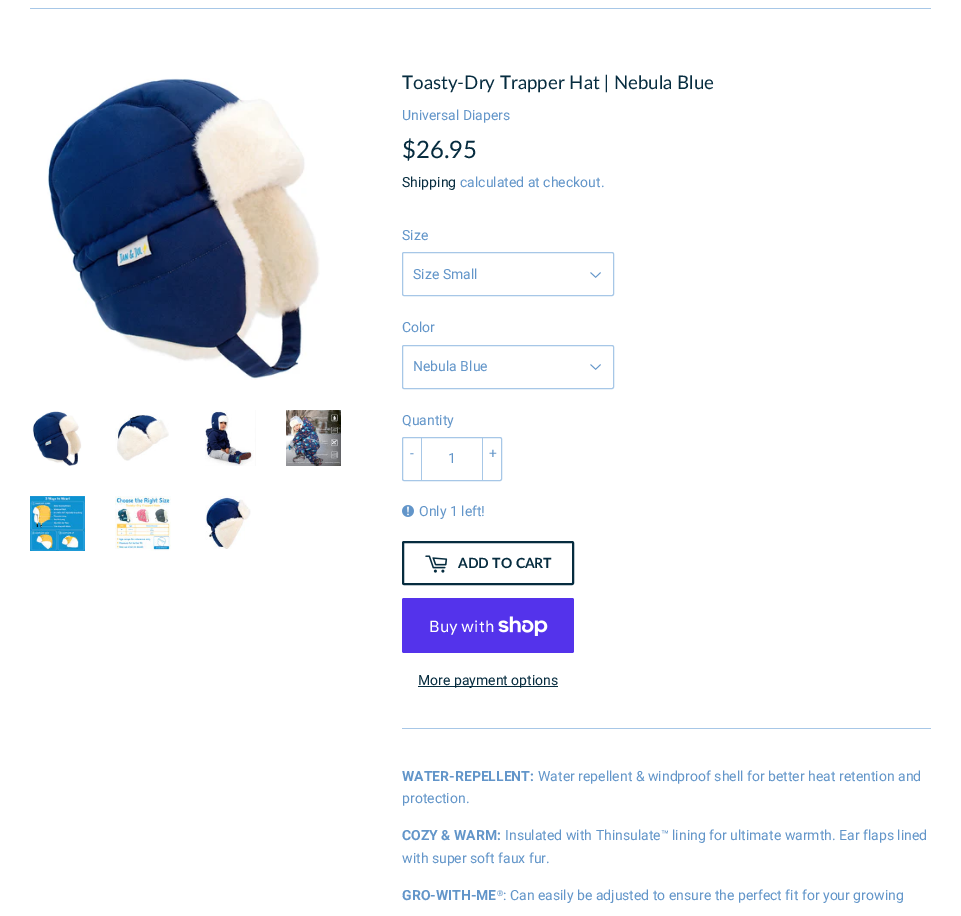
%!PS
<< /PageSize [961 916] >> setpagedevice
/f/fill load def
/s/stroke load def
/w/setlinewidth load def
/C { dup -16 bitshift 255 div exch dup -8 bitshift 255 and 255 div exch 255 and 255 div setrgbcolor } def
/F { [ exch dup neg 0 0 3 -1 roll 0 0 ] selectfont } def
/T { moveto show } def
/R { rectfill } def
/Q { 5 dict begin { /r /h /w /y /x } { exch def } forall
  x r add y moveto x w add y 2 copy h add r arct x w add y h add x 1 index r arct
  x y h add x y r arct x y 2 copy exch w add exch r arct closepath end } def
/I { 5 dict begin { /h /w /y /x /name } { exch def } forall
  gsave x y translate w h scale
  w h 8 [w 0 0 h 0 0] name (r) file false 3 colorimage grestore end } def
0 916 translate 1 -1 scale
4 setmiterlimit
16#FFFFFF C
0 0 961 916 R
16#A7C7E7 C
30 8 901 1 R
(1.rgb) 47 78 273 302 I
(2.rgb) 32 411 50 55 I
(3.rgb) 115 414 54 47 I
(4.rgb) 205 410 51 56 I
(5.rgb) 286 410 55 56 I
(6.rgb) 30 496 55 55 I
(7.rgb) 115 496 56 55 I
(8.rgb) 205 496 46 53 I
/Lato-Regular 18.7 F
16#062C3F C
(Toasty-Dry Trapper Hat | Nebula Blue) 402 89 T
/Roboto-Regular 14 F
16#6295C9 C
(Universal Diapers) 402 120 T
/Lato-Regular 24 F
16#062C3F C
($26.95) 402 158 T
/Roboto-Regular 14 F
(Shipping) 402 187 T
16#6295C9 C
(calculated at checkout.) 460 187 T
(Size) 402 240 T
(9.rgb) 590 272 11 6 I
16#A7C7E7 C
402.5 252.5 211 43 1.5 Q s
16#6295C9 C
(Size Small) 413 279 T
(Color) 402 332 T
(9.rgb) 590 364 11 6 I
16#A7C7E7 C
402.5 345.5 211 43 1.5 Q s
16#6295C9 C
(Nebula Blue) 413 371 T
(Quantity) 402 425 T
16#A7C7E7 C
402.5 437.5 99 43 1.5 Q s
421 437 1 44 R
16#6295C9 C
(-) 410 458 T
(1) 448 463 T
16#A7C7E7 C
482 437 1 44 R
16#6295C9 C
(+) 489 458 T
(10.rgb) 402 505 12 12 I
(Only 1 left!) 419 516 T
16#062C3F C
2 w
403 542 170 42 1 Q s
(11.rgb) 425 555 23 18 I
/Lato-Bold 14 F
(ADD TO CART) 458 568 T
16#5433EB C
402 598 172 55 2 Q f
/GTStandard-Regular 16 F
16#FFFFFF C
(Buy with) 429 632 T
(12.rgb) 498 616 50 20 I
16#062C3F C
418 686 140 1 R
/Roboto-Regular 14 F
(More payment options) 418 685 T
16#A7C7E7 C
402 728 529 1 R
/Roboto-Bold 14 F
16#6295C9 C
(WATER-REPELLENT:) 402 781 T
/Roboto-Regular 14 F
(Water repellent & windproof shell for better heat retention and) 538 781 T
(protection.) 402 803 T
/Roboto-Bold 14 F
(COZY & WARM:) 402 840 T
/Roboto-Regular 14 F
(Insulated with Thinsulate) 505 840 T
/LiberationSans-Regular 8 F
(™) 661 836 T
/Roboto-Regular 14 F
(lining for ultimate warmth. Ear flaps lined) 672 840 T
(with super soft faux fur.) 402 863 T
/Roboto-Bold 14 F
(GRO-WITH-ME) 402 900 T
/Roboto-Bold 8 F
(®) 497 896 T
/Roboto-Regular 14 F
(: Can easily be adjusted to ensure the perfect fit for your growing) 503 900 T
showpage
